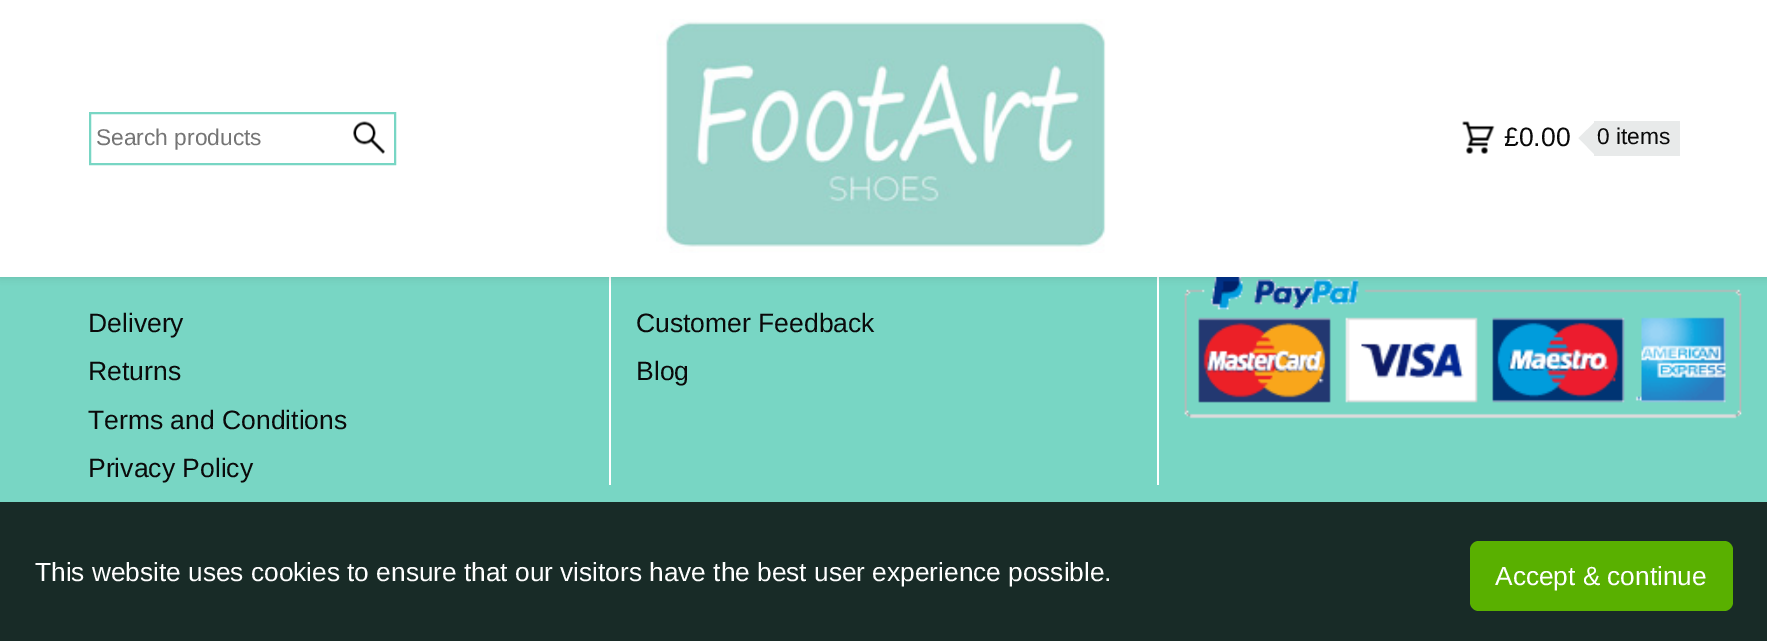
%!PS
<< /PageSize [1767 641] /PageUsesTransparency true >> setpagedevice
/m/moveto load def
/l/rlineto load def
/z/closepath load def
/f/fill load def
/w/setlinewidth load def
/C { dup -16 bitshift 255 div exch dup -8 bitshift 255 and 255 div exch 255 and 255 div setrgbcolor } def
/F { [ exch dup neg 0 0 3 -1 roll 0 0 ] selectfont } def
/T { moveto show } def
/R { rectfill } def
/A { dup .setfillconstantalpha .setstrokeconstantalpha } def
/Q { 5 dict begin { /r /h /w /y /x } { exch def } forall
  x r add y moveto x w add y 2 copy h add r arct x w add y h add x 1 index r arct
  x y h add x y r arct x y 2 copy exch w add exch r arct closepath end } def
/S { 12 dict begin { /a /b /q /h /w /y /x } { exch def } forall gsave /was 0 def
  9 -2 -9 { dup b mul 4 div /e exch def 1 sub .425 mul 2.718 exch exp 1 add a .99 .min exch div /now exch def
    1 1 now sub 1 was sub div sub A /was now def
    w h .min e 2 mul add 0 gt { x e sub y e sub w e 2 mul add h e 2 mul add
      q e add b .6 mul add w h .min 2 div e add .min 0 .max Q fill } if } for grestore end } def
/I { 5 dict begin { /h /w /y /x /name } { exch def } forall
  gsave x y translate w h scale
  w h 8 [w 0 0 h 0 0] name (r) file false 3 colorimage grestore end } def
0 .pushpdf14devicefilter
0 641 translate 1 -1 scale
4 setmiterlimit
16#78D6C4 C
0 0 1767 641 R
16#FFFFFF C
609 277 2 208 R
1157 277 2 208 R
(4.rgb) 1184 277 558 142 I
16#000000 C
0 0 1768 275 0 4.5 .2 S
16#FFFFFF C
0 0 1767 277 R
16#78D6C4 C
2 w
90 113 305 51 rectstroke
/LiberationSans-Regular 22.75 F
16#757575 C
(Search products) 96 145 T
(1.rgb) 353 121 32 33 I
(2.rgb) 656 19 450 234 I
(3.rgb) 1462 121 33 33 I
/LiberationSans-Regular 26.5 F
16#0A0A0A C
(£0.00) 1504 146 T
16#E8EAEA C
1594 121 86 35 R
1596 121 m 0 35 l -17.5 -18 l z f
/LiberationSans-Regular 22.75 F
16#0A0A0A C
(0 items) 1597 144 T
/LiberationSans-Regular 26.5 F
(Delivery) 88 332 T
(Returns) 88 380 T
(Terms and Conditions) 88 429 T
(Privacy Policy) 88 477 T
(Customer Feedback) 636 332 T
(Blog) 636 380 T
16#182B27 C
0 502 1767 139 R
/LiberationSans-Regular 26.25 F
16#FFFFFF C
(This website uses cookies to ensure that our visitors have the best user experience possible.) 35 581 T
16#59B000 C
1470 541 263 70 9 Q f
16#FFFFFF C
(Accept & continue) 1495 585 T
.poppdf14devicefilter showpage
